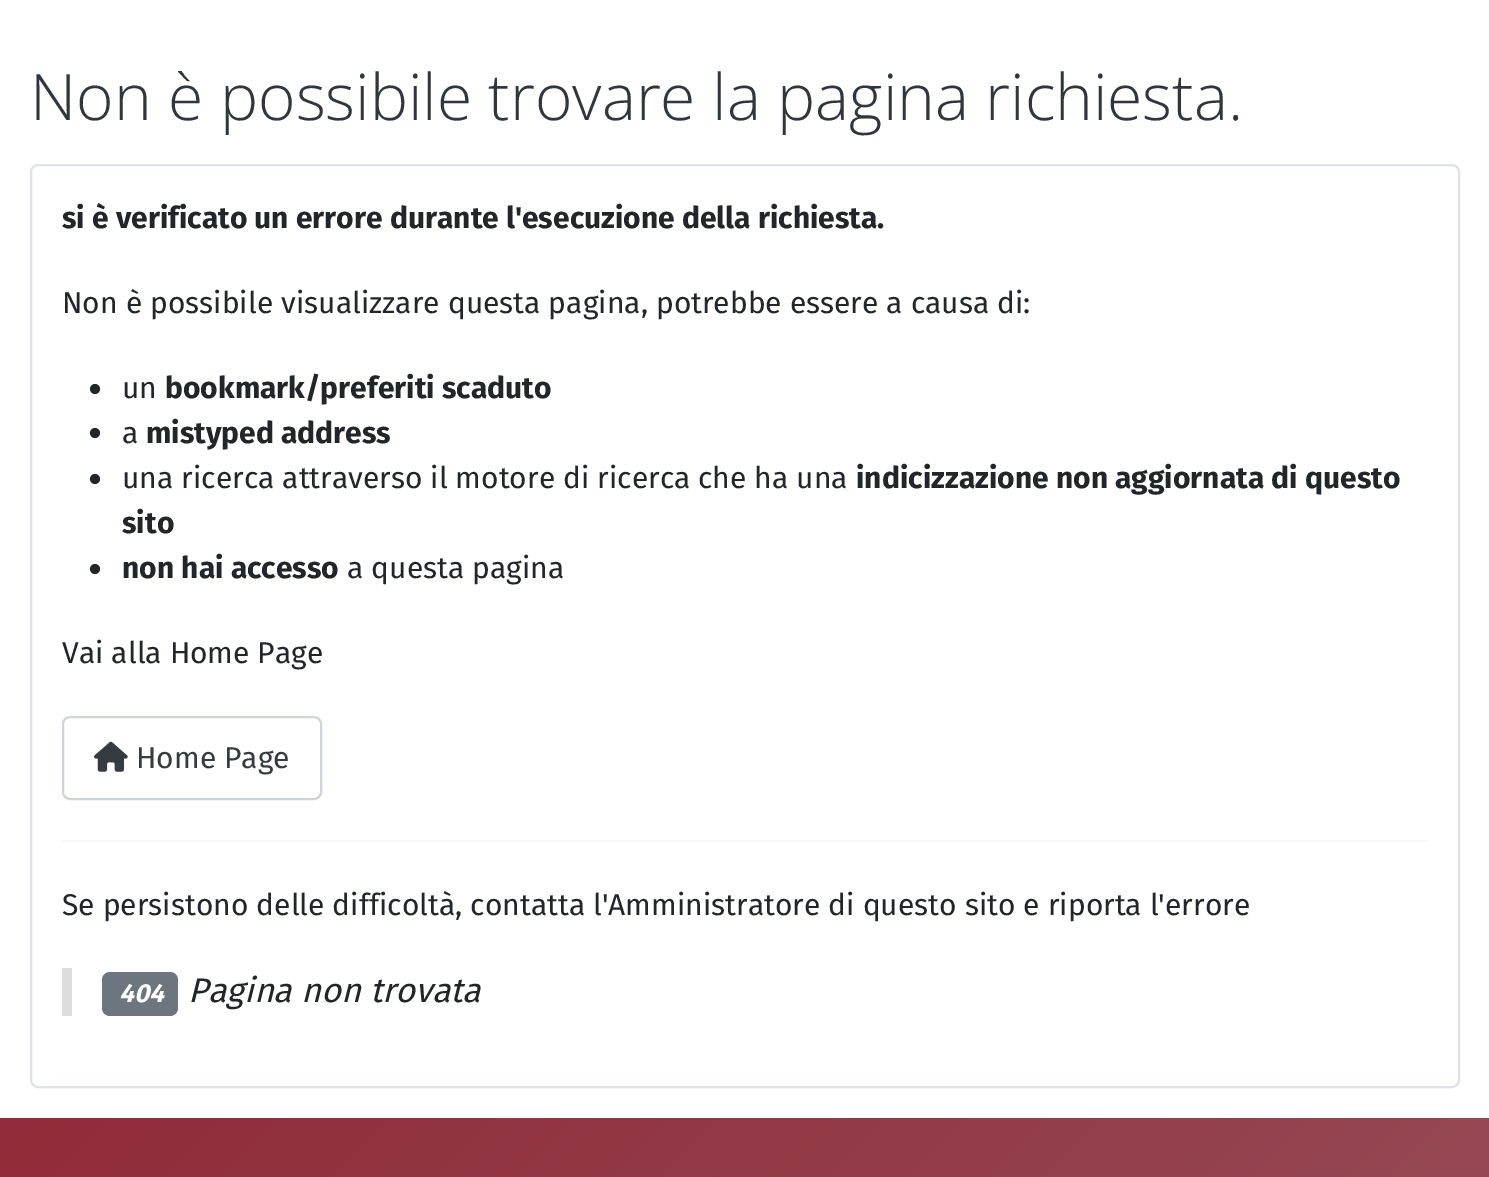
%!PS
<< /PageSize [1489 1177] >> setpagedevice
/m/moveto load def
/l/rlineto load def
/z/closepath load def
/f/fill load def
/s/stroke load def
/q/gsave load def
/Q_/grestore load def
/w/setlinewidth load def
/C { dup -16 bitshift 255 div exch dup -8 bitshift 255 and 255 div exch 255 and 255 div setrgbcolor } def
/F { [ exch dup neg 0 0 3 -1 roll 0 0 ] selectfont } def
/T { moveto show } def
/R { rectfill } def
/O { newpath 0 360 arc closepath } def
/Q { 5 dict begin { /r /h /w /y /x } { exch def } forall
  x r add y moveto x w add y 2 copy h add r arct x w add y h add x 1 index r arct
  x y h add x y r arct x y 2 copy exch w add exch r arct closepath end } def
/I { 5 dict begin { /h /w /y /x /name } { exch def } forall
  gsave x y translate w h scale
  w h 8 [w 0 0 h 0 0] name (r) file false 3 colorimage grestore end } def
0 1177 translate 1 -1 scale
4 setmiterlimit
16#FFFFFF C
0 0 1489 1177 R
/OpenSans-Light 64 F
16#31353D C
(Non è possibile trovare la pagina richiesta.) 30 120 T
16#DFE3E7 C
2 w
31 165 1428 922 7 Q s
/FiraSans-Bold 30 F
16#22262A C
(si è verificato un errore durante l'esecuzione della richiesta.) 62 228 T
/FiraSans-Regular 30 F
(Non è possibile visualizzare questa pagina, potrebbe essere a causa di:) 62 313 T
95 389 5 O f
(un) 122 398 T
/FiraSans-Bold 30 F
(bookmark/preferiti scaduto) 165 398 T
95 433 5 O f
/FiraSans-Regular 30 F
(a) 122 443 T
/FiraSans-Bold 30 F
(mistyped address) 146 443 T
95 479 5 O f
/FiraSans-Regular 30 F
(una ricerca attraverso il motore di ricerca che ha una) 122 488 T
/FiraSans-Bold 30 F
(indicizzazione non aggiornata di questo) 856 488 T
(sito) 122 533 T
95 569 5 O f
(non hai accesso) 122 578 T
/FiraSans-Regular 30 F
(a questa pagina) 347 578 T
(Vai alla Home Page) 62 663 T
16#CED4DA C
63 717 258 82 7 Q s
(1.rgb) 94 741 34 31 I
16#353B41 C
(Home Page) 136 768 T
16#F7F7F7 C
62 840 1366 2 R
16#22262A C
(Se persistono delle difficoltà, contatta l'Amministratore di questo sito e riporta l'errore) 62 915 T
16#DDDDDD C
62 968 10 48 R
16#6D757E C
102 972 76 44 8 Q f
/FiraSans-BoldItalic 26 F
16#FFFFFF C
(404) 119 1002 T
/FiraSans-Italic 34 F
16#22262A C
(Pagina non trovata) 188 1002 T
q 0 1118 m 1489 0 l 0 59 l -1489 0 l z clip newpath
<< /ShadingType 2 /ColorSpace /DeviceRGB /Coords [311 807 1179 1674] /Extend [true true] /Function << /FunctionType 2 /Domain [0 1] /C0 [.569 .169 .231] /C1 [.584 .294 .337] /N 1 >> >> shfill Q_
showpage
